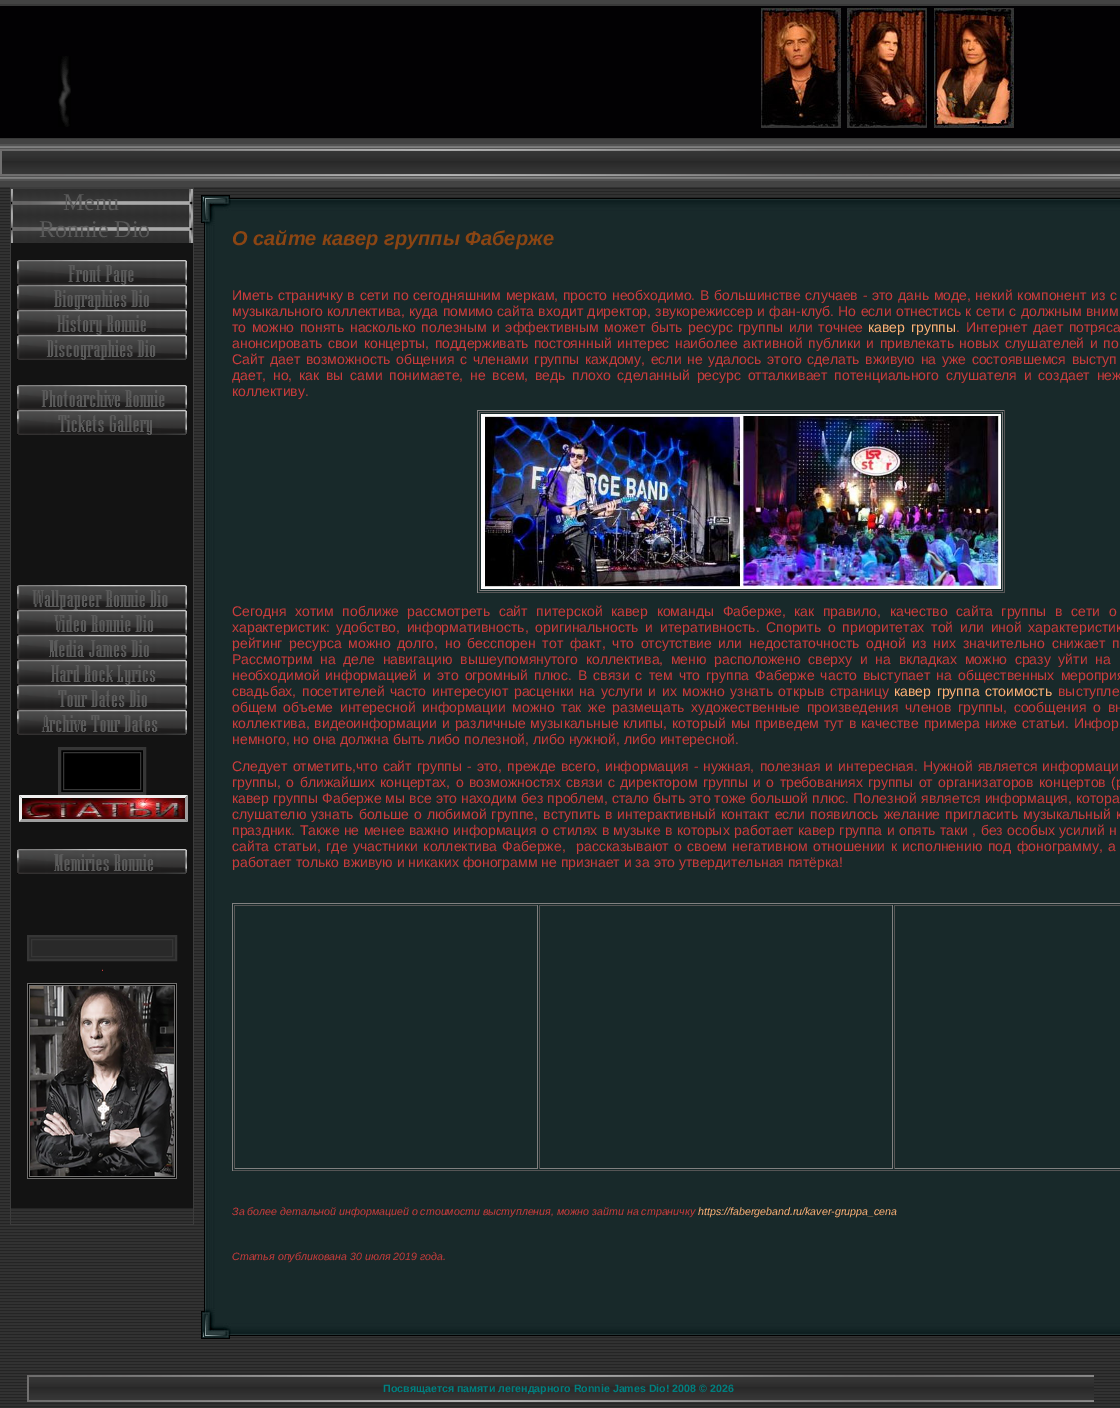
%!PS
<< /PageSize [1120 1408] >> setpagedevice
/m/moveto load def
/l/rlineto load def
/z/closepath load def
/f/fill load def
/s/stroke load def
/q/gsave load def
/Q_/grestore load def
/w/setlinewidth load def
/C { dup -16 bitshift 255 div exch dup -8 bitshift 255 and 255 div exch 255 and 255 div setrgbcolor } def
/F { [ exch dup neg 0 0 3 -1 roll 0 0 ] selectfont } def
/T { moveto show } def
/R { rectfill } def
/I { 5 dict begin { /h /w /y /x /name } { exch def } forall
  gsave x y translate w h scale
  w h 8 [w 0 0 h 0 0] name (r) file false 3 colorimage grestore end } def
0 1408 translate 1 -1 scale
4 setmiterlimit
16#FFFFFF C
0 0 1120 1408 R
(1.rgb) 0 187 1120 1221 I
(2.rgb) 0 0 1120 149 I
(3.rgb) 58 56 13 71 I
(4.rgb) 761 8 80 120 I
(5.rgb) 847 8 80 120 I
(6.rgb) 934 8 80 120 I
(7.rgb) 0 149 1120 27 I
16#717070 C
0 151 2 23 R
(8.rgb) 0 176 1120 11 I
16#3C3C3C C
10 187 184 2 R
193 187 1 1038 R
10 1224 184 1 R
10 187 1 1038 R
(9.rgb) 11 189 182 54 I
/LiberationSerif-Regular 24 F
16#595959 C
(Menu) 63 210 T
(Ronnie Dio) 39 237 T
16#131313 C
11 243 182 965 R
(10.rgb) 17 260 170 25 I
(11.rgb) 17 285 170 25 I
(12.rgb) 17 310 170 25 I
(13.rgb) 17 335 170 25 I
(14.rgb) 17 385 170 25 I
(15.rgb) 17 410 170 25 I
(16.rgb) 17 585 170 25 I
(17.rgb) 17 610 170 25 I
(18.rgb) 17 635 170 25 I
(19.rgb) 17 660 170 25 I
(20.rgb) 17 685 170 25 I
(21.rgb) 17 710 170 25 I
16#000000 C
59.5 748.5 m 85 0 l 0 45 l -85 0 l z q f Q_
16#363636 C
3 w
s
1 w
63.5 752.5 77 37 rectstroke
16#EEEEEE C
19 795 m 169 0 l -3 3 l -163 0 l z f
16#9F9F9F C
188 795 m 0 27 l -3 -3 l 0 -21 l z f
188 822 m -169 0 l 3 -3 l 163 0 l z f
16#EEEEEE C
19 822 m 0 -27 l 3 3 l 0 21 l z f
(22.rgb) 22 798 163 21 I
(23.rgb) 17 849 170 25 I
16#292929 C
28 936 m 148 0 l 0 24 l -148 0 l z q f Q_
16#363636 C
2 w
s
1 w
31.5 939.5 141 17 rectstroke
/LiberationSans-Regular 10.65 F
16#CA3C3C C
(.) 101 971 T
(24.rgb) 27 983 150 196 I
(25.rgb) 201 195 31 32 I
(26.rgb) 232 198 888 29 I
(27.rgb) 204 227 28 1080 I
16#18292A C
232 227 888 1080 R
/LiberationSans-BoldItalic 20 F
16#8B4513 C
(О сайте кавер группы Фаберже) 232 245 T
/LiberationSans-Regular 14 F
16#CA3C3C C
232 300 m .8 0 32 (Иметь страничку в сети по сегодняшним меркам, просто необходимо. В большинстве случаев - это дань моде, некий компонент из с) widthshow
232 316 m .5 0 32 (музыкального коллектива, куда помимо сайта входит директор, звукорежиссер и фан-клуб. Но если отнестись к сети с должным вним) widthshow
232 332 m 1.75 0 32 (то можно понять насколько полезным и эффективным может быть ресурс группы или точнее) widthshow
16#FFB277 C
868 332 m 2 0 32 (кавер группы) widthshow
16#CA3C3C C
956 332 m 1.75 0 32 (. Интернет дает потряса) widthshow
232 348 m 1.75 0 32 (анонсировать свои концерты, поддерживать постоянный интерес наиболее активной публики и привлекать новых слушателей и по) widthshow
232 364 m 1.8 0 32 (Сайт дает возможность общения с членами группы каждому, если не удалось этого сделать вживую на уже состоявшемся выступ) widthshow
232 380 m 2.9 0 32 (дает, но, как вы сами понимаете, не всем, ведь плохо сделанный ресурс отталкивает потенциального слушателя и создает неж) widthshow
(коллективу.) 232 396 T
16#808080 C
477 410 528 1 R
16#555555 C
1004 410 1 183 R
477 592 528 1 R
16#808080 C
477 410 1 183 R
16#555555 C
479 412 524 1 R
16#808080 C
1002 412 1 179 R
479 590 524 1 R
16#555555 C
479 412 1 179 R
(28.rgb) 481 414 520 175 I
16#CA3C3C C
232 616 m 4.75 0 32 (Сегодня хотим поближе рассмотреть сайт питерской кавер команды Фаберже, как правило, качество сайта группы в сети о) widthshow
232 632 m 2.9 0 32 (характеристик: удобство, информативность, оригинальность и итеративность. Спорить о приоритетах той или иной характеристик) widthshow
232 648 m 2.9 0 32 (рейтинг ресурса можно долго, но бесспорен тот факт, что отсутствие или недостаточность одной из них значительно снижает п) widthshow
232 664 m 3.75 0 32 (Рассмотрим на деле навигацию вышеупомянутого коллектива, меню расположено сверху и на вкладках можно сразу уйти на) widthshow
232 680 m 2.25 0 32 (необходимой информацией и это огромный плюс. В связи с тем что группа Фаберже часто выступает на общественных мероприя) widthshow
232 696 m 1.75 0 32 (свадьбах, посетителей часто интересуют расценки на услуги и их можно узнать открыв страницу) widthshow
16#FFB277 C
894 696 m 1.75 0 32 (кавер группа стоимость) widthshow
16#CA3C3C C
1058 696 m 1.75 0 32 (выступле) widthshow
232 712 m 2.75 0 32 (общем объеме интересной информации можно так же размещать художественные произведения членов группы, сообщения о вн) widthshow
232 728 m 1 0 32 (коллектива, видеоинформации и различные музыкальные клипы, который мы приведем тут в качестве примера ниже статьи. Инфор) widthshow
(немного, но она должна быть либо полезной, либо нужной, либо интересной.) 232 744 T
232 771 m 1.25 0 32 (Следует отметить,что сайт группы - это, прежде всего, информация - нужная, полезная и интересная. Нужной является информаци) widthshow
232 787 m 1.5 0 32 (группы, о ближайших концертах, о возможностях связи с директором группы и о требованиях группы от организаторов концертов \(р) widthshow
232 803 m .2 0 32 (кавер группы Фаберже мы все это находим без проблем, стало быть это тоже большой плюс. Полезной является информация, котора) widthshow
232 819 m 1.1 0 32 (слушателю узнать больше о любимой группе, вступить в интерактивный контакт если появилось желание пригласить музыкальный к) widthshow
232 835 m .5 0 32 (праздник. Также не менее важно информация о стилях в музыке в которых работает кавер группа и опять таки , без особых усилий н) widthshow
232 851 m 1.6 0 32 (сайта статьи, где участники коллектива Фаберже,  рассказывают о своем негативном отношении к исполнению под фонограмму, а) widthshow
(работает только вживую и никаких фонограмм не признает и за это утвердительная пятёрка!) 232 867 T
16#808080 C
232 903 888 1 R
16#555555 C
232 1170 888 1 R
16#808080 C
232 903 1 268 R
16#555555 C
234 905 304 1 R
16#808080 C
537 905 1 264 R
234 1168 304 1 R
16#555555 C
234 905 1 264 R
539 905 354 1 R
16#808080 C
892 905 1 264 R
539 1168 354 1 R
16#555555 C
539 905 1 264 R
894 905 226 1 R
16#808080 C
894 1168 226 1 R
16#555555 C
894 905 1 264 R
/LiberationSans-Italic 10.65 F
16#CA3C3C C
(За более детальной информацией о стоимости выступления, можно зайти на страничку) 232 1215 T
16#FFB277 C
(https://fabergeband.ru/kaver-gruppa_cena) 698 1215 T
16#CA3C3C C
(Статья опубликована 30 июля 2019 года.) 232 1260 T
(29.rgb) 201 1307 31 32 I
(30.rgb) 232 1307 888 29 I
(31.rgb) 27 1375 1067 27 I
16#717070 C
27 1377 2 23 R
/LiberationSans-Bold 10.65 F
16#008080 C
(Посвящается памяти легендарного Ronnie James Dio! 2008 © 2026) 383 1392 T
showpage
